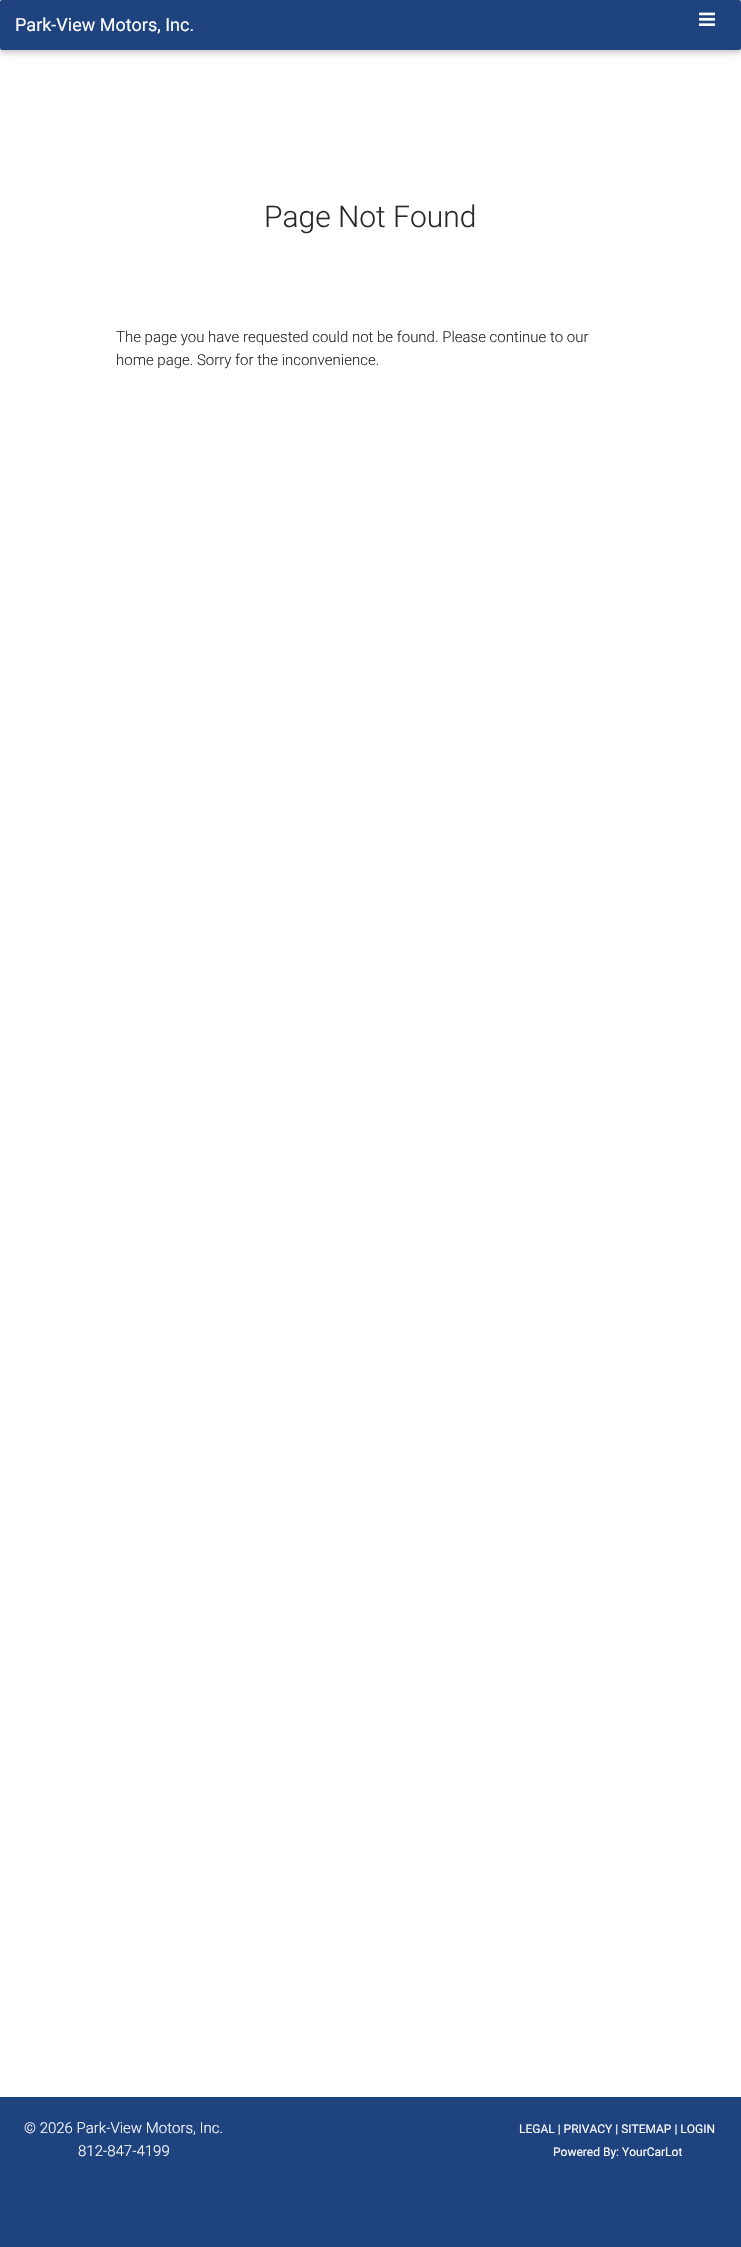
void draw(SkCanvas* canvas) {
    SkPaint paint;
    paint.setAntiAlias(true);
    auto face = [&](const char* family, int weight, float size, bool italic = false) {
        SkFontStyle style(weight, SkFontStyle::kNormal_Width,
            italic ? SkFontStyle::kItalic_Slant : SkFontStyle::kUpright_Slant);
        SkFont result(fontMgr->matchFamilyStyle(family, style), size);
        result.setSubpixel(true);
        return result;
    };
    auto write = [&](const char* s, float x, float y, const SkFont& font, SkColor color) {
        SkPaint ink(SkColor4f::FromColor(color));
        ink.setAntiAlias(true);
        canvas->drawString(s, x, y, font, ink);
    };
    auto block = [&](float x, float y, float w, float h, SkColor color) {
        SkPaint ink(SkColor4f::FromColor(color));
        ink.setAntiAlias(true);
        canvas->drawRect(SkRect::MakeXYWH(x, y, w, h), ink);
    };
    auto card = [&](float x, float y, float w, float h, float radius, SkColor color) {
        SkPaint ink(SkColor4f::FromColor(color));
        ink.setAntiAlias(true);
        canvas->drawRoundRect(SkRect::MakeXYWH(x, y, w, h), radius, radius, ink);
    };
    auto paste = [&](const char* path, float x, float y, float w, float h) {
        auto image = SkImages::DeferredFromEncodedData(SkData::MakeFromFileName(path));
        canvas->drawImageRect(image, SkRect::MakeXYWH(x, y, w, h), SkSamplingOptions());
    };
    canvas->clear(SK_ColorWHITE);
    paint.setColor(SkColorSetARGB(31, 0, 0, 0));
    paint.setMaskFilter(SkMaskFilter::MakeBlur(kNormal_SkBlurStyle, 5));
    canvas->drawRoundRect(SkRect::MakeXYWH(0, 2, 741, 50), 2, 2, paint);
    paint.setMaskFilter(nullptr);
    paint.setColor(SkColorSetARGB(41, 0, 0, 0));
    paint.setMaskFilter(SkMaskFilter::MakeBlur(kNormal_SkBlurStyle, 2.5f));
    canvas->drawRoundRect(SkRect::MakeXYWH(0, 2, 741, 50), 2, 2, paint);
    paint.setMaskFilter(nullptr);
    card(0, 0, 741, 50, 2, SkColorSetRGB(30, 67, 127));
    auto kFont1 = face("Roboto", 400, 18);
    write("Park-View Motors, Inc.", 15, 31, kFont1, SK_ColorWHITE);
    paste("pic1.png", 699, 12, 17, 14);
    auto kFont2 = face("Roboto", 300, 30);
    write("Page Not Found", 264, 227, kFont2, SkColorSetRGB(40, 40, 40));
    auto kFont3 = face("Roboto", 300, 15);
    write("The page you have requested could not be found. Please continue to our", 116, 342, kFont3, SkColorSetRGB(40, 40, 40));
    write("home page. Sorry for the inconvenience.", 116, 365, kFont3, SkColorSetRGB(40, 40, 40));
    block(0, 2097, 741, 150, SkColorSetRGB(30, 67, 127));
    write("© 2026 Park-View Motors, Inc.", 24, 2133, kFont3, SK_ColorWHITE);
    write("812-847-4199", 78, 2156, kFont3, SK_ColorWHITE);
    auto kFont4 = face("Roboto", 400, 12);
    write("LEGAL | PRIVACY | SITEMAP | LOGIN", 519, 2133, kFont4, SK_ColorWHITE);
    write("Powered By: YourCarLot", 553, 2156, kFont4, SK_ColorWHITE);
}
